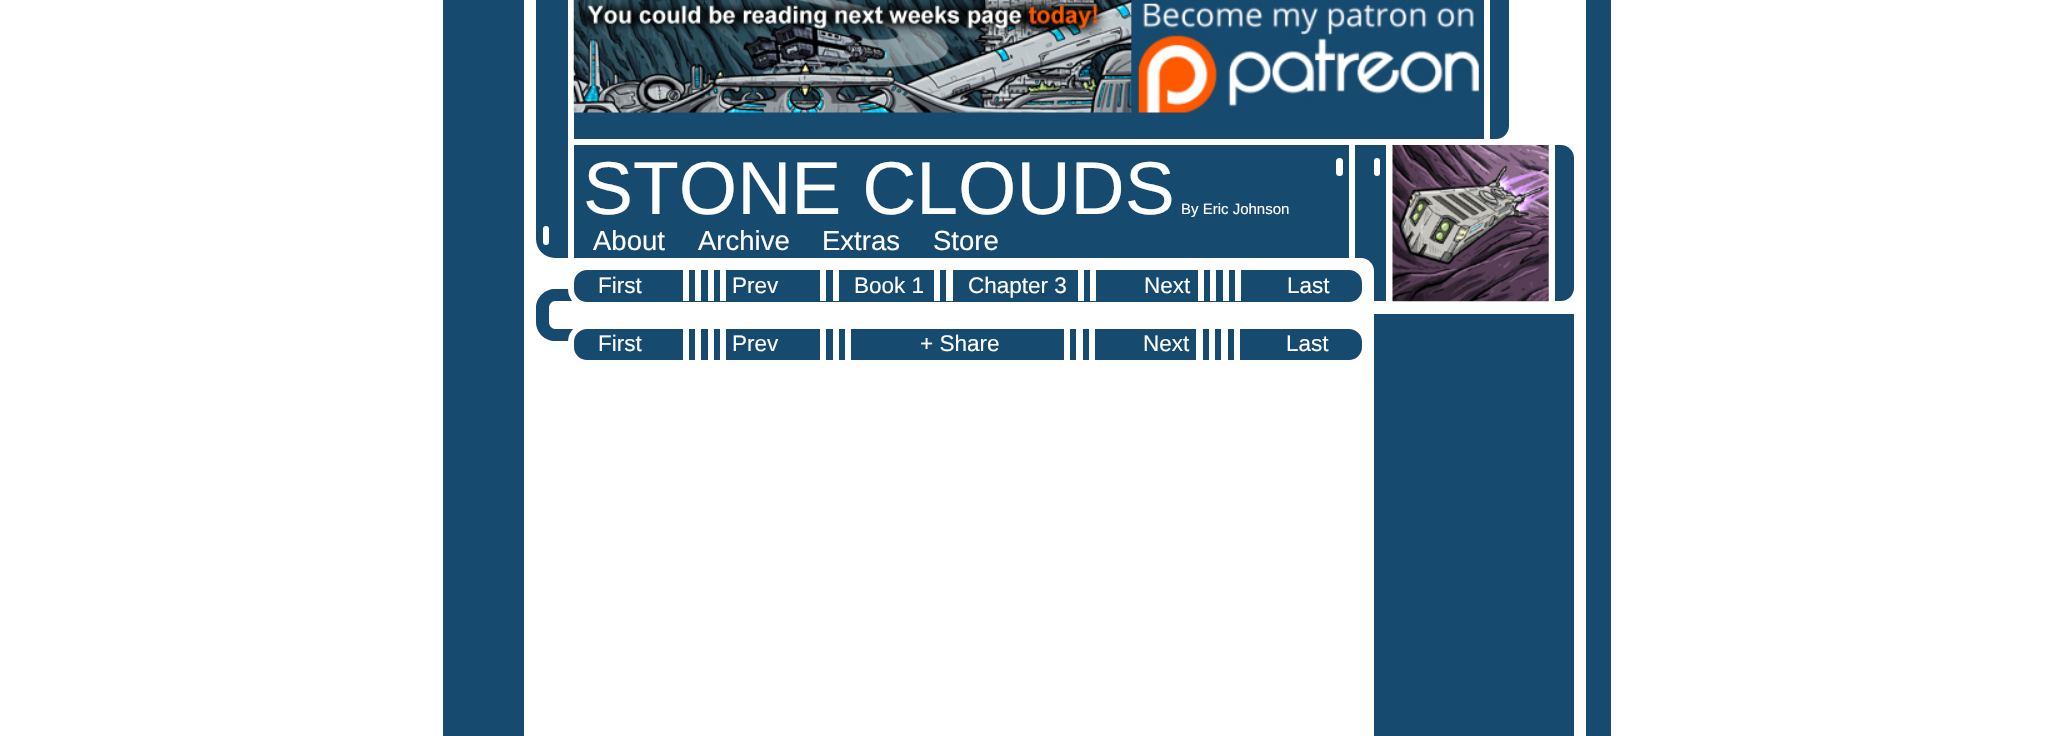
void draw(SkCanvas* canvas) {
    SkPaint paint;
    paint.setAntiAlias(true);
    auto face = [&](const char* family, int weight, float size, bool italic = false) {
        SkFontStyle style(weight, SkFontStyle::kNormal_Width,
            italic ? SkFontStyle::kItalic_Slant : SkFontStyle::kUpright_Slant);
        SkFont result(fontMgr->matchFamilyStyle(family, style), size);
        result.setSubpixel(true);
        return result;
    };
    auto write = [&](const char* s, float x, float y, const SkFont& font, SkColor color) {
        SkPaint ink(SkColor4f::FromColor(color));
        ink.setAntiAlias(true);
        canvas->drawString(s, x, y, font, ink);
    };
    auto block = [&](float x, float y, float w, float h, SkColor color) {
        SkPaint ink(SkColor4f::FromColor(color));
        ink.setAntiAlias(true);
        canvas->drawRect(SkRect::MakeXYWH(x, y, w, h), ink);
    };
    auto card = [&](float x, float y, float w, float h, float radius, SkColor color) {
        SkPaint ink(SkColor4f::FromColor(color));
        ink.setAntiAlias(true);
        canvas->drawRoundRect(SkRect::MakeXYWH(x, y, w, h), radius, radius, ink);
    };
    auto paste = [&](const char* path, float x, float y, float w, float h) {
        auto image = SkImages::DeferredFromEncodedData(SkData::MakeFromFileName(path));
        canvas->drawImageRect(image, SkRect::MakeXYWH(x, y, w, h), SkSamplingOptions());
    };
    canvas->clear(SK_ColorWHITE);
    block(1586, 0, 25, 736, SkColorSetRGB(22, 74, 111));
    block(443, 0, 81, 736, SkColorSetRGB(22, 74, 111));
    paint.setColor(SkColorSetRGB(22, 74, 111));
    canvas->drawPath(SkPathBuilder().moveTo(536, 0).lineTo(568, 0).lineTo(568, 258).lineTo(555, 258).cubicTo(544.5f, 258, 536, 249.5f, 536, 239).close().detach(), paint);
    card(543, 226, 6, 19, 3, SK_ColorWHITE);
    block(574, 0, 910, 139, SkColorSetRGB(22, 74, 111));
    paste("pic1.png", 573, 0, 906, 113);
    canvas->drawPath(SkPathBuilder().moveTo(1490, 0).lineTo(1509, 0).lineTo(1509, 126).cubicTo(1509, 133, 1503, 139, 1496, 139).lineTo(1490, 139).close().detach(), paint);
    block(574, 145, 775, 113, SkColorSetRGB(22, 74, 111));
    auto kFont1 = face("Liberation Sans", 400, 75);
    write("STONE CLOUDS", 583, 214, kFont1, SK_ColorWHITE);
    auto kFont2 = face("Liberation Sans", 400, 15);
    write("By Eric Johnson", 1181, 214, kFont2, SK_ColorWHITE);
    card(1336, 158, 7, 18, 3.5f, SK_ColorWHITE);
    auto kFont3 = face("Liberation Sans", 400, 27.5f);
    write("About", 593, 250, kFont3, SK_ColorWHITE);
    write("Archive", 698, 250, kFont3, SK_ColorWHITE);
    write("Extras", 822, 250, kFont3, SK_ColorWHITE);
    write("Store", 933, 250, kFont3, SK_ColorWHITE);
    block(1355, 145, 31, 156, SkColorSetRGB(22, 74, 111));
    card(1374, 158, 6, 18, 3, SK_ColorWHITE);
    paint.setColor(SK_ColorWHITE);
    canvas->drawPath(SkPathBuilder().moveTo(1336, 258).lineTo(1361, 258).cubicTo(1368, 258, 1374, 264, 1374, 271).lineTo(1374, 301).lineTo(1336, 301).close().detach(), paint);
    paste("pic2.png", 1392, 145, 157, 157);
    paint.setColor(SkColorSetRGB(22, 74, 111));
    canvas->drawPath(SkPathBuilder().moveTo(1555, 145).lineTo(1561, 145).cubicTo(1568, 145, 1574, 151, 1574, 158).lineTo(1574, 288).cubicTo(1574, 295, 1568, 301, 1561, 301).lineTo(1555, 301).close().detach(), paint);
    canvas->drawPath(SkPathBuilder(SkPathFillType::kEvenOdd).moveTo(555, 289).lineTo(1305, 289).cubicTo(1315, 289, 1324, 297, 1324, 308).lineTo(1324, 322).cubicTo(1324, 333, 1315, 341, 1305, 341).lineTo(555, 341).cubicTo(545, 341, 536, 333, 536, 322).lineTo(536, 308).cubicTo(536, 297, 545, 289, 555, 289).close().moveTo(555, 301).lineTo(1305, 301).cubicTo(1315, 301, 1324, 304, 1324, 308).lineTo(1324, 322).cubicTo(1324, 326, 1315, 329, 1305, 329).lineTo(555, 329).cubicTo(552, 329, 549, 326, 549, 322).lineTo(549, 308).cubicTo(549, 304, 552, 301, 555, 301).close().detach(), paint);
    canvas->drawRoundRect(SkRect::MakeXYWH(571, 267, 794, 38), 16, 16, paint);
    paint.setStyle(SkPaint::kStroke_Style);
    paint.setStrokeWidth(6);
    paint.setColor(SK_ColorWHITE);
    canvas->drawRoundRect(SkRect::MakeXYWH(571, 267, 794, 38), 16, 16, paint);
    auto kFont4 = face("Liberation Sans", 400, 22.5f);
    write("First", 598, 293, kFont4, SK_ColorWHITE);
    block(683, 270, 6, 31, SK_ColorWHITE);
    block(695, 270, 6, 31, SK_ColorWHITE);
    block(708, 270, 6, 31, SK_ColorWHITE);
    block(720, 270, 6, 31, SK_ColorWHITE);
    write("Prev", 732, 293, kFont4, SK_ColorWHITE);
    block(820, 270, 6, 31, SK_ColorWHITE);
    block(833, 270, 6, 31, SK_ColorWHITE);
    write("Book 1", 854, 293, kFont4, SK_ColorWHITE);
    block(934, 270, 6, 31, SK_ColorWHITE);
    block(946, 270, 7, 31, SK_ColorWHITE);
    write("Chapter 3", 968, 293, kFont4, SK_ColorWHITE);
    block(1078, 270, 6, 31, SK_ColorWHITE);
    block(1090, 270, 6, 31, SK_ColorWHITE);
    write("Next", 1144, 293, kFont4, SK_ColorWHITE);
    block(1198, 270, 6, 31, SK_ColorWHITE);
    block(1210, 270, 6, 31, SK_ColorWHITE);
    block(1223, 270, 6, 31, SK_ColorWHITE);
    block(1235, 270, 6, 31, SK_ColorWHITE);
    write("Last", 1287, 293, kFont4, SK_ColorWHITE);
    paint.setStyle(SkPaint::kFill_Style);
    paint.setColor(SkColorSetRGB(22, 74, 111));
    canvas->drawRoundRect(SkRect::MakeXYWH(571, 326, 794, 37), 16, 16, paint);
    paint.setStyle(SkPaint::kStroke_Style);
    paint.setColor(SK_ColorWHITE);
    canvas->drawRoundRect(SkRect::MakeXYWH(571, 326, 794, 37), 16, 16, paint);
    write("First", 598, 351, kFont4, SK_ColorWHITE);
    block(683, 329, 6, 31, SK_ColorWHITE);
    block(695, 329, 6, 31, SK_ColorWHITE);
    block(708, 329, 6, 31, SK_ColorWHITE);
    block(720, 329, 6, 31, SK_ColorWHITE);
    write("Prev", 732, 351, kFont4, SK_ColorWHITE);
    block(820, 329, 6, 31, SK_ColorWHITE);
    block(833, 329, 6, 31, SK_ColorWHITE);
    block(845, 329, 6, 31, SK_ColorWHITE);
    write("+ Share", 920, 351, kFont4, SK_ColorWHITE);
    block(1064, 329, 6, 31, SK_ColorWHITE);
    block(1076, 329, 7, 31, SK_ColorWHITE);
    block(1089, 329, 6, 31, SK_ColorWHITE);
    write("Next", 1143, 351, kFont4, SK_ColorWHITE);
    block(1196, 329, 7, 31, SK_ColorWHITE);
    block(1209, 329, 6, 31, SK_ColorWHITE);
    block(1221, 329, 7, 31, SK_ColorWHITE);
    block(1234, 329, 6, 31, SK_ColorWHITE);
    write("Last", 1286, 351, kFont4, SK_ColorWHITE);
    block(1374, 314, 200, 422, SkColorSetRGB(22, 74, 111));
}
